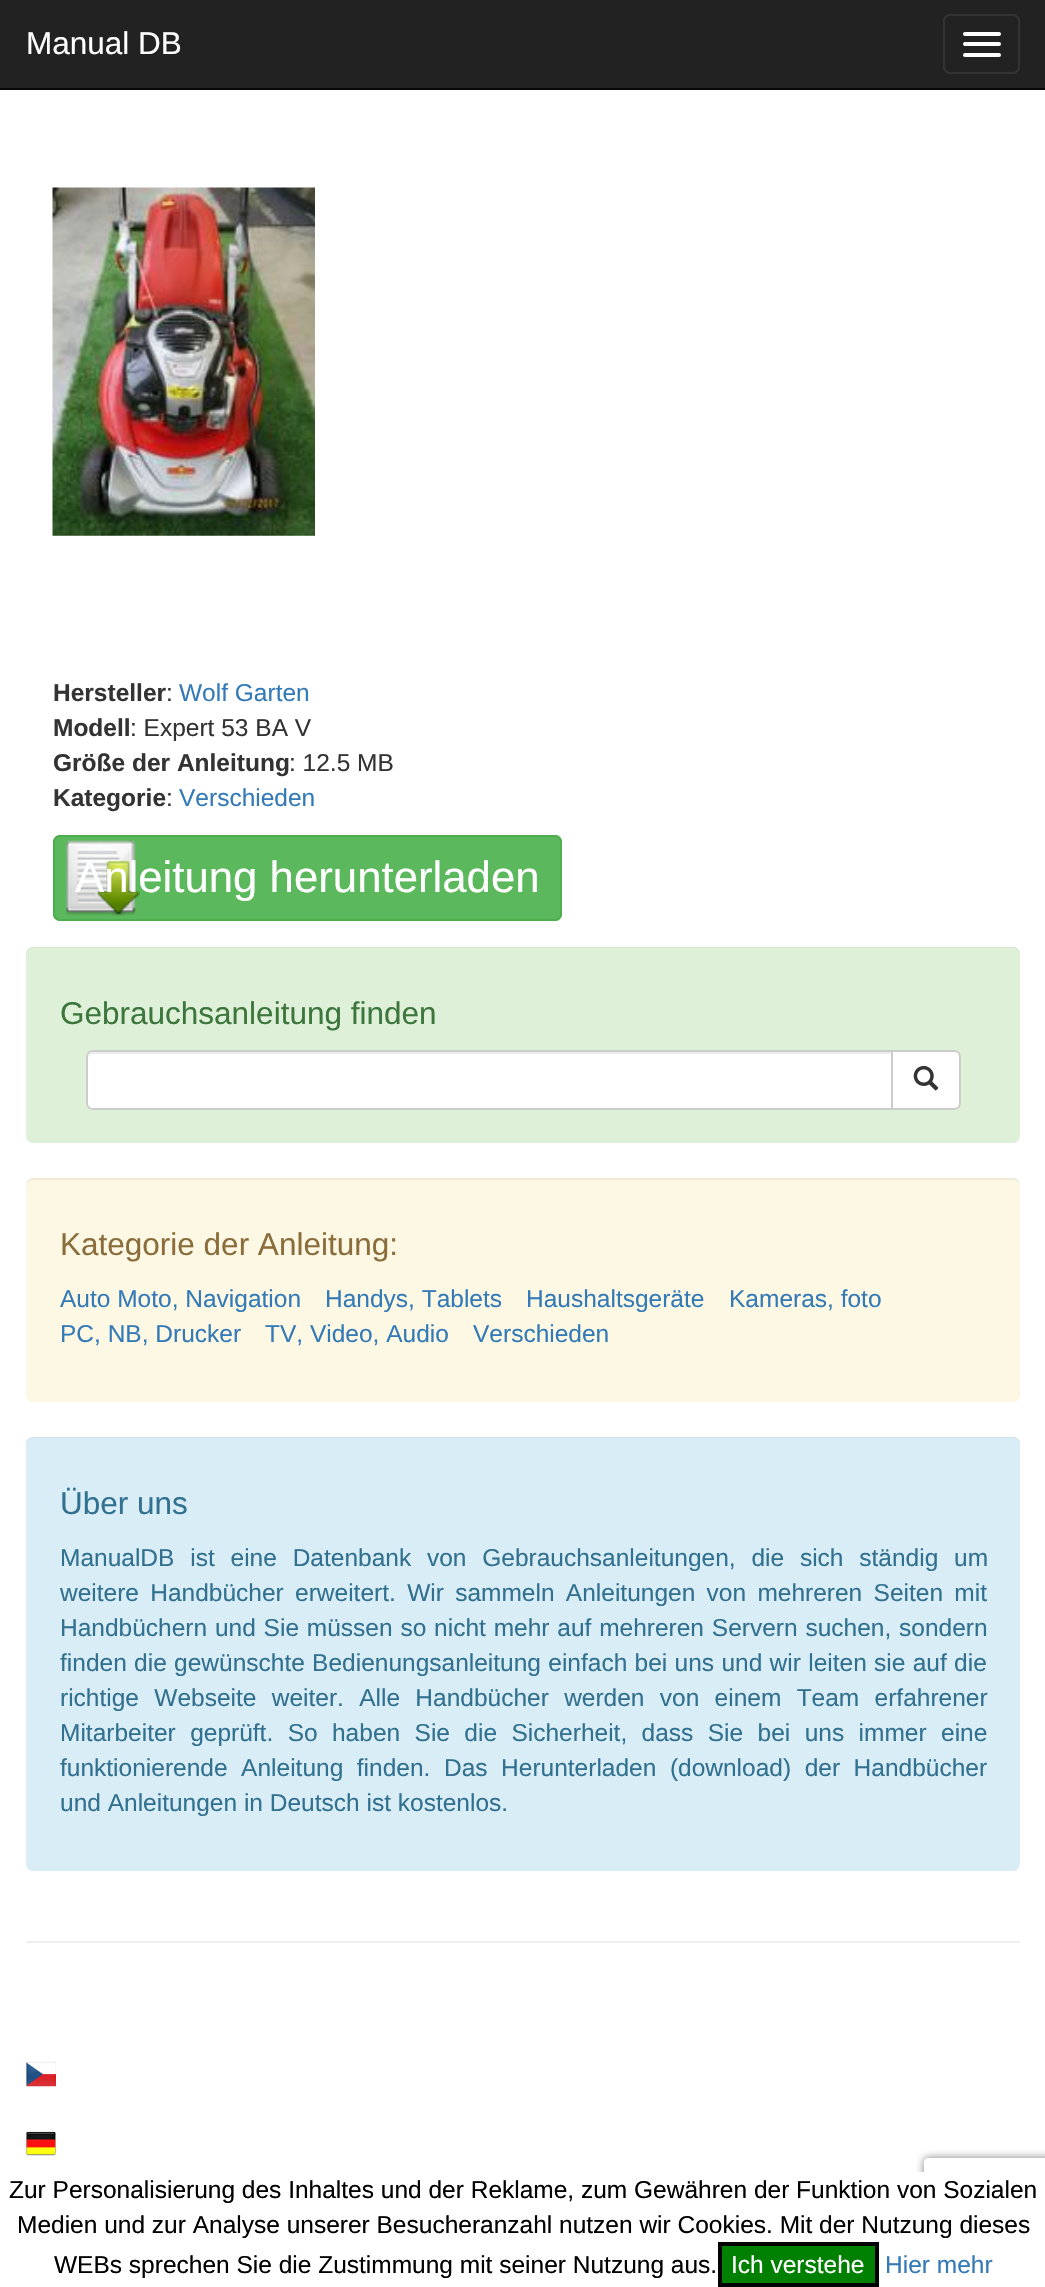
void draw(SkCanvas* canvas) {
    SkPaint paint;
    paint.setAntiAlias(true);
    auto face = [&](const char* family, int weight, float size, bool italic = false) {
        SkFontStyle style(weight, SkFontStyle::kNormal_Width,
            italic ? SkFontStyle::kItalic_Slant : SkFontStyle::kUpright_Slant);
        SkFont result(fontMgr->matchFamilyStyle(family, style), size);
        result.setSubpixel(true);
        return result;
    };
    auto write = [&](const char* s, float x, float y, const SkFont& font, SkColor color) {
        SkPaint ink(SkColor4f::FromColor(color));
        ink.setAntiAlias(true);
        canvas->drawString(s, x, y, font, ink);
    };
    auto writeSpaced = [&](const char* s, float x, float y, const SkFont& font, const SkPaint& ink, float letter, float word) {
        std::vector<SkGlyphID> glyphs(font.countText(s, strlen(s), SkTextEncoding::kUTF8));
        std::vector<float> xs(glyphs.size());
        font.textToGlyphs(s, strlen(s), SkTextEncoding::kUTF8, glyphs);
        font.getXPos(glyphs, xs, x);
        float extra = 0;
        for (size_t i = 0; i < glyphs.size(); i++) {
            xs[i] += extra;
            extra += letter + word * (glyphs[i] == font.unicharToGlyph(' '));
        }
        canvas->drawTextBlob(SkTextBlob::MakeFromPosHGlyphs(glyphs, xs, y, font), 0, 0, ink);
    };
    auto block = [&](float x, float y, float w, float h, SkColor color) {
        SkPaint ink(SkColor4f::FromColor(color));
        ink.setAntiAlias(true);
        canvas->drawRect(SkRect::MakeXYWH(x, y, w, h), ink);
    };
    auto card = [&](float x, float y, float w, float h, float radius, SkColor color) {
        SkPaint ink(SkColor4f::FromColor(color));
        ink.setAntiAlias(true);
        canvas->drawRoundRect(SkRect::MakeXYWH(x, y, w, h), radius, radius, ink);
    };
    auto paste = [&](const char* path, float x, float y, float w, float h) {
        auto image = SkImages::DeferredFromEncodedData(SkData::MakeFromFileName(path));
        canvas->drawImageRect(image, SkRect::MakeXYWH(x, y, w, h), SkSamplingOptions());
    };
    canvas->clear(SK_ColorWHITE);
    block(0, 0, 1045, 88, SkColorSetRGB(34, 34, 34));
    block(0, 88, 1045, 2, SkColorSetRGB(8, 8, 8));
    auto kFont1 = face("Liberation Sans", 400, 31.5f);
    write("Manual DB", 26, 54, kFont1, SK_ColorWHITE);
    paint.setStyle(SkPaint::kStroke_Style);
    paint.setStrokeWidth(2);
    paint.setColor(SkColorSetRGB(51, 51, 51));
    canvas->drawRoundRect(SkRect::MakeXYWH(944, 15, 75, 58), 6, 6, paint);
    card(963, 32, 38, 4, 2, SK_ColorWHITE);
    card(963, 42, 38, 4, 2, SK_ColorWHITE);
    card(963, 53, 38, 4, 2, SK_ColorWHITE);
    paste("pic1.png", 52, 187, 263, 349);
    auto kFont2 = face("Liberation Sans", 700, 24.5f);
    write("Hersteller", 53, 701, kFont2, SkColorSetRGB(51, 51, 51));
    auto kFont3 = face("Liberation Sans", 400, 24.5f);
    write(":", 166, 701, kFont3, SkColorSetRGB(51, 51, 51));
    write("Wolf Garten", 179, 701, kFont3, SkColorSetRGB(51, 122, 183));
    write("Modell", 53, 736, kFont2, SkColorSetRGB(51, 51, 51));
    write(": Expert 53 BA V", 130, 736, kFont3, SkColorSetRGB(51, 51, 51));
    write("Größe der Anleitung", 53, 771, kFont2, SkColorSetRGB(51, 51, 51));
    write(": 12.5 MB", 289, 771, kFont3, SkColorSetRGB(51, 51, 51));
    write("Kategorie", 53, 806, kFont2, SkColorSetRGB(51, 51, 51));
    write(":", 166, 806, kFont3, SkColorSetRGB(51, 51, 51));
    write("Verschieden", 179, 806, kFont3, SkColorSetRGB(51, 122, 183));
    card(53, 835, 509, 86, 7, SkColorSetRGB(92, 184, 92));
    paste("pic2.png", 66, 840, 74, 76);
    paint.setColor(SkColorSetRGB(76, 174, 76));
    canvas->drawRoundRect(SkRect::MakeXYWH(54, 836, 507, 84), 6, 6, paint);
    auto kFont4 = face("Liberation Sans", 400, 43.75f);
    write("Anleitung herunterladen", 75, 892, kFont4, SK_ColorWHITE);
    canvas->save();
    canvas->clipPath(SkPathBuilder(SkPathFillType::kEvenOdd).moveTo(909, 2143).lineTo(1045, 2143).lineTo(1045, 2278).lineTo(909, 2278).close().moveTo(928, 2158).lineTo(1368, 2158).cubicTo(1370, 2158, 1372, 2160, 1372, 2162).lineTo(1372, 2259).cubicTo(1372, 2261, 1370, 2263, 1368, 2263).lineTo(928, 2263).cubicTo(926, 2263, 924, 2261, 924, 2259).lineTo(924, 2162).cubicTo(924, 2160, 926, 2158, 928, 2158).close().detach(), true);
    paint.setStyle(SkPaint::kFill_Style);
    paint.setColor(SkColorSetRGB(128, 128, 128));
    paint.setMaskFilter(SkMaskFilter::MakeBlur(kNormal_SkBlurStyle, 4.5f));
    canvas->drawRoundRect(SkRect::MakeXYWH(924, 2158, 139, 105), 4, 4, paint);
    paint.setMaskFilter(nullptr);
    canvas->restore();
    card(26, 947, 994, 196, 7, SkColorSetRGB(223, 240, 216));
    paint.setColor(SkColorSetARGB(13, 0, 0, 0));
    canvas->drawPath(SkPathBuilder().moveTo(33, 948).lineTo(1013, 948).cubicTo(1017, 948, 1020, 952, 1020, 956).lineTo(1020, 954).cubicTo(1020, 950, 1017, 947, 1013, 947).lineTo(33, 947).cubicTo(29, 947, 26, 950, 26, 954).lineTo(26, 956).cubicTo(26, 952, 29, 948, 33, 948).close().detach(), paint);
    write("Gebrauchsanleitung finden", 60, 1024, kFont1, SkColorSetRGB(60, 118, 61));
    paint.setColor(SK_ColorWHITE);
    canvas->drawPath(SkPathBuilder().moveTo(93, 1050).lineTo(893, 1050).lineTo(893, 1110).lineTo(93, 1110).cubicTo(89, 1110, 86, 1107, 86, 1103).lineTo(86, 1057).cubicTo(86, 1053, 89, 1050, 93, 1050).close().detach(), paint);
    paint.setColor(SkColorSetRGB(236, 236, 236));
    canvas->drawPath(SkPathBuilder().moveTo(93, 1054).lineTo(891, 1054).lineTo(891, 1052).lineTo(93, 1052).cubicTo(89, 1052, 88, 1056, 88, 1059).cubicTo(88, 1056, 90, 1054, 93, 1054).close().detach(), paint);
    paint.setStyle(SkPaint::kStroke_Style);
    paint.setColor(SkColorSetRGB(204, 204, 204));
    canvas->drawPath(SkPathBuilder().moveTo(93, 1051).lineTo(892, 1051).lineTo(892, 1109).lineTo(93, 1109).cubicTo(89.5f, 1109, 87, 1106.5f, 87, 1103).lineTo(87, 1057).cubicTo(87, 1053.5f, 89.5f, 1051, 93, 1051).close().detach(), paint);
    paint.setStyle(SkPaint::kFill_Style);
    paint.setColor(SK_ColorWHITE);
    canvas->drawPath(SkPathBuilder().moveTo(892, 1051).lineTo(954, 1051).cubicTo(957.5f, 1051, 960, 1053.5f, 960, 1057).lineTo(960, 1103).cubicTo(960, 1106.5f, 957.5f, 1109, 954, 1109).lineTo(892, 1109).close().detach(), paint);
    paint.setStyle(SkPaint::kStroke_Style);
    paint.setColor(SkColorSetRGB(204, 204, 204));
    canvas->drawPath(SkPathBuilder().moveTo(892, 1051).lineTo(954, 1051).cubicTo(957.5f, 1051, 960, 1053.5f, 960, 1057).lineTo(960, 1103).cubicTo(960, 1106.5f, 957.5f, 1109, 954, 1109).lineTo(892, 1109).close().detach(), paint);
    paste("pic3.png", 913, 1065, 26, 26);
    card(26, 1178, 994, 224, 7, SkColorSetRGB(252, 248, 227));
    paint.setStyle(SkPaint::kFill_Style);
    paint.setColor(SkColorSetARGB(13, 0, 0, 0));
    canvas->drawPath(SkPathBuilder().moveTo(33, 1180).lineTo(1013, 1180).cubicTo(1017, 1180, 1020, 1183, 1020, 1186).lineTo(1020, 1185).cubicTo(1020, 1181, 1017, 1178, 1013, 1178).lineTo(33, 1178).cubicTo(29, 1178, 26, 1181, 26, 1185).lineTo(26, 1186).cubicTo(26, 1183, 29, 1180, 33, 1180).close().detach(), paint);
    write("Kategorie der Anleitung:", 60, 1255, kFont1, SkColorSetRGB(138, 109, 59));
    write("Auto Moto, Navigation", 60, 1307, kFont3, SkColorSetRGB(51, 122, 183));
    write("Handys, Tablets", 325, 1307, kFont3, SkColorSetRGB(51, 122, 183));
    write("Haushaltsgeräte", 526, 1307, kFont3, SkColorSetRGB(51, 122, 183));
    write("Kameras, foto", 729, 1307, kFont3, SkColorSetRGB(51, 122, 183));
    write("PC, NB, Drucker", 60, 1342, kFont3, SkColorSetRGB(51, 122, 183));
    write("TV, Video, Audio", 265, 1342, kFont3, SkColorSetRGB(51, 122, 183));
    write("Verschieden", 473, 1342, kFont3, SkColorSetRGB(51, 122, 183));
    card(26, 1437, 994, 434, 7, SkColorSetRGB(217, 237, 247));
    canvas->drawPath(SkPathBuilder().moveTo(33, 1438).lineTo(1013, 1438).cubicTo(1017, 1438, 1020, 1442, 1020, 1446).lineTo(1020, 1444).cubicTo(1020, 1440, 1017, 1437, 1013, 1437).lineTo(33, 1437).cubicTo(29, 1437, 26, 1440, 26, 1444).lineTo(26, 1446).cubicTo(26, 1442, 29, 1438, 33, 1438).close().detach(), paint);
    write("Über uns", 60, 1514, kFont1, SkColorSetRGB(49, 112, 143));
    paint.setColor(SkColorSetRGB(49, 112, 143));
    writeSpaced("ManualDB ist eine Datenbank von Gebrauchsanleitungen, die sich ständig um", 60, 1566, kFont3, paint, 0, 9);
    writeSpaced("weitere Handbücher erweitert. Wir sammeln Anleitungen von mehreren Seiten mit", 60, 1601, kFont3, paint, 0, 4.5f);
    writeSpaced("Handbüchern und Sie müssen so nicht mehr auf mehreren Servern suchen, sondern", 60, 1636, kFont3, paint, 0, 1);
    writeSpaced("finden die gewünschte Bedienungsanleitung einfach bei uns und wir leiten sie auf die", 60, 1671, kFont3, paint, 0, 0.5f);
    writeSpaced("richtige Webseite weiter. Alle Handbücher werden von einem Team erfahrener", 60, 1706, kFont3, paint, 0, 8.5f);
    writeSpaced("Mitarbeiter geprüft. So haben Sie die Sicherheit, dass Sie bei uns immer eine", 60, 1741, kFont3, paint, 0, 7.6f);
    writeSpaced("funktionierende Anleitung finden. Das Herunterladen (download) der Handbücher", 60, 1776, kFont3, paint, 0, 6.75f);
    write("und Anleitungen in Deutsch ist kostenlos.", 60, 1811, kFont3, SkColorSetRGB(49, 112, 143));
    block(26, 1941, 994, 2, SkColorSetRGB(238, 238, 238));
    paste("pic4.png", 26, 2061, 30, 26);
    paste("pic5.png", 26, 2131, 30, 25);
    block(915, 2172, 130, 100, SK_ColorWHITE);
    write("Zur Personalisierung des Inhaltes und der Reklame, zum Gewähren der Funktion von Sozialen", 9, 2198, kFont3, SK_ColorBLACK);
    write("Medien und zur Analyse unserer Besucheranzahl nutzen wir Cookies. Mit der Nutzung dieses", 17, 2233, kFont3, SK_ColorBLACK);
    write("WEBs sprechen Sie die Zustimmung mit seiner Nutzung aus.", 54, 2273, kFont3, SK_ColorBLACK);
    paint.setColor(SkColorSetRGB(0, 128, 0));
    canvas->drawRect(SkRect::MakeXYWH(720, 2244, 157, 41), paint);
    paint.setStyle(SkPaint::kStroke_Style);
    paint.setStrokeWidth(4);
    paint.setColor(SK_ColorBLACK);
    canvas->drawRect(SkRect::MakeXYWH(720, 2244, 157, 41), paint);
    write("Ich verstehe", 731, 2273, kFont3, SK_ColorWHITE);
    write("Hier mehr", 885, 2273, kFont3, SkColorSetRGB(51, 122, 183));
}
